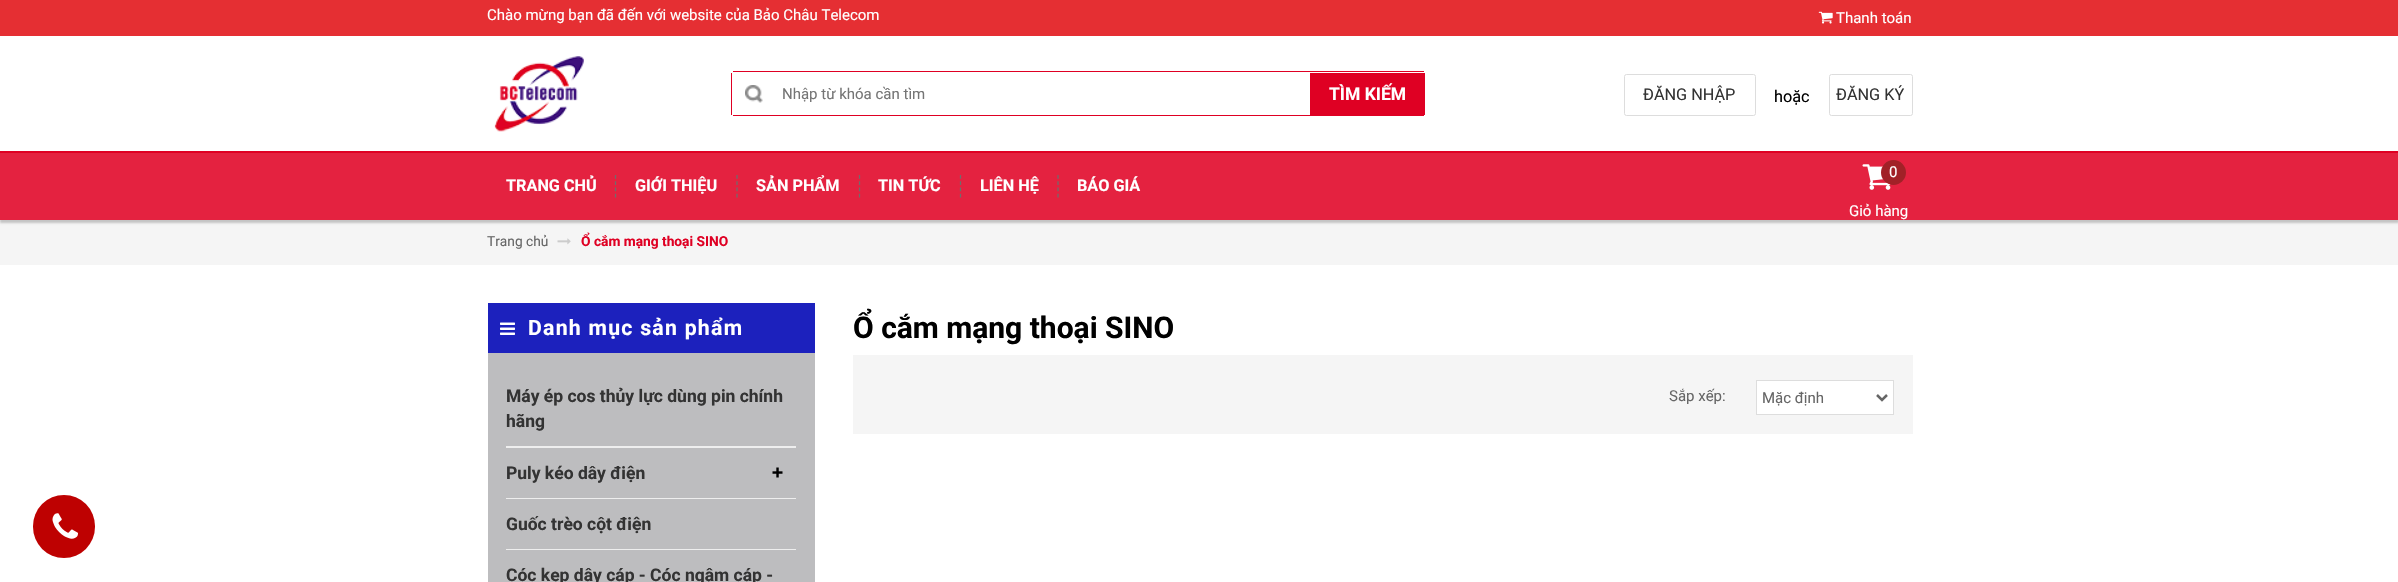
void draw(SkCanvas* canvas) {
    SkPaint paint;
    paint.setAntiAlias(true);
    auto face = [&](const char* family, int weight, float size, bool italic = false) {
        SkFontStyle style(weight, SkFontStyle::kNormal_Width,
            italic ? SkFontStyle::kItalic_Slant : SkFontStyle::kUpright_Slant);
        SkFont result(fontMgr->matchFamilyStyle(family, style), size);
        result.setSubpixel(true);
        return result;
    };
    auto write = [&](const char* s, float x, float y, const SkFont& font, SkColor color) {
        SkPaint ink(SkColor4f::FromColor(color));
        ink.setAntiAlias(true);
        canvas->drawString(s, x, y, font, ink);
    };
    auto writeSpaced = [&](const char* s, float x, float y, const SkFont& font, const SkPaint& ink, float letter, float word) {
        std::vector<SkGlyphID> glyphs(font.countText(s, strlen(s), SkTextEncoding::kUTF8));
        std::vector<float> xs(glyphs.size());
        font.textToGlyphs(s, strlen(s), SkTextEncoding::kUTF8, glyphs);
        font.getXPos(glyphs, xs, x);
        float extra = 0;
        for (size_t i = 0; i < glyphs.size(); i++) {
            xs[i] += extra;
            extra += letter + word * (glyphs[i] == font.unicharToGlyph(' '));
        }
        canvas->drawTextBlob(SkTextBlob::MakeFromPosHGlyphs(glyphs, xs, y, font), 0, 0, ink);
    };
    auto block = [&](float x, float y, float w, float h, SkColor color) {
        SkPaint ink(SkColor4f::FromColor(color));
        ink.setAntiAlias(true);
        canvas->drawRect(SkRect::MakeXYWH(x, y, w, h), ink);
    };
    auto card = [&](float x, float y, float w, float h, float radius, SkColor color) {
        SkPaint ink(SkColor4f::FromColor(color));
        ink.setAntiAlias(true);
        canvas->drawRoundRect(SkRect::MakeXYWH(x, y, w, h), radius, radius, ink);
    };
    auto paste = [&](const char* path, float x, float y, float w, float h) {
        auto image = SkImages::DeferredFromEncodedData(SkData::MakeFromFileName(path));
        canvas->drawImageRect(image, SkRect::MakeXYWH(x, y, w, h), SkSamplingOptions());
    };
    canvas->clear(SK_ColorWHITE);
    card(33, 495, 62, 63, 31, SkColorSetRGB(190, 1, 1));
    paste("pic1.png", 52, 513, 26, 26);
    block(0, 0, 2398, 36, SkColorSetRGB(229, 47, 51));
    auto kFont1 = face("Roboto", 400, 15);
    write("Chào mừng bạn đã đến với website của Bảo Châu Telecom", 487, 20, kFont1, SK_ColorWHITE);
    paste("pic2.png", 1818, 11, 15, 13);
    write("Thanh toán", 1836, 23, kFont1, SK_ColorWHITE);
    paste("pic3.png", 494, 56, 90, 76);
    paste("pic4.png", 745, 85, 18, 18);
    block(733, 71, 691, 1, SkColorSetRGB(223, 0, 35));
    block(733, 115, 691, 1, SkColorSetRGB(223, 0, 35));
    block(731, 73, 1, 42, SkColorSetRGB(223, 0, 35));
    write("Nhập từ khóa cần tìm", 782, 99, kFont1, SkColorSetRGB(117, 117, 117));
    block(1310, 73, 115, 42, SkColorSetRGB(223, 0, 35));
    auto kFont2 = face("Roboto", 700, 17.5f);
    write("TÌM KIẾM", 1329, 100, kFont2, SK_ColorWHITE);
    paint.setStyle(SkPaint::kStroke_Style);
    paint.setStrokeWidth(1);
    paint.setColor(SkColorSetRGB(221, 221, 221));
    canvas->drawRoundRect(SkRect::MakeXYWH(1624.5f, 74.5f, 131, 41), 2, 2, paint);
    auto kFont3 = face("Roboto", 400, 16.25f);
    write("ĐĂNG NHẬP", 1643, 100, kFont3, SkColorSetRGB(51, 51, 51));
    write("hoặc", 1774, 102, kFont3, SK_ColorBLACK);
    canvas->drawRoundRect(SkRect::MakeXYWH(1829.5f, 74.5f, 83, 41), 2, 2, paint);
    write("ĐĂNG KÝ", 1836, 100, kFont3, SkColorSetRGB(51, 51, 51));
    block(0, 220, 2398, 45, SkColorSetRGB(245, 245, 245));
    paint.setStyle(SkPaint::kFill_Style);
    paint.setColor(SkColorSetARGB(51, 0, 0, 0));
    paint.setMaskFilter(SkMaskFilter::MakeBlur(kNormal_SkBlurStyle, 1));
    canvas->drawRect(SkRect::MakeXYWH(0, 154, 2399, 69), paint);
    paint.setMaskFilter(nullptr);
    block(0, 151, 2398, 2, SkColorSetRGB(223, 0, 35));
    block(0, 153, 2398, 67, SkColorSetRGB(228, 34, 64));
    paint.setStyle(SkPaint::kStroke_Style);
    paint.setStrokeWidth(1.2f);
    paint.setColor(SkColorSetRGB(109, 109, 109));
    paint.setPathEffect(SkDashPathEffect::Make({{3.75f, 2.5f}}, 0));
    canvas->drawPath(SkPathBuilder().moveTo(615.5f, 175).lineTo(615.5f, 197.5f).detach(), paint);
    paint.setPathEffect(nullptr);
    auto kFont4 = face("Roboto", 700, 16.25f);
    write("TRANG CHỦ", 506, 191, kFont4, SK_ColorWHITE);
    paint.setPathEffect(SkDashPathEffect::Make({{3.75f, 2.5f}}, 0));
    canvas->drawPath(SkPathBuilder().moveTo(737, 175).lineTo(737, 197.5f).detach(), paint);
    paint.setPathEffect(nullptr);
    write("GIỚI THIỆU", 635, 191, kFont4, SK_ColorWHITE);
    paint.setPathEffect(SkDashPathEffect::Make({{3.75f, 2.5f}}, 0));
    canvas->drawPath(SkPathBuilder().moveTo(859.5f, 175).lineTo(859.5f, 197.5f).detach(), paint);
    paint.setPathEffect(nullptr);
    write("SẢN PHẨM", 756, 191, kFont4, SK_ColorWHITE);
    paint.setPathEffect(SkDashPathEffect::Make({{3.75f, 2.5f}}, 0));
    canvas->drawPath(SkPathBuilder().moveTo(960.5f, 175).lineTo(960.5f, 197.5f).detach(), paint);
    paint.setPathEffect(nullptr);
    write("TIN TỨC", 878, 191, kFont4, SK_ColorWHITE);
    paint.setPathEffect(SkDashPathEffect::Make({{3.75f, 2.5f}}, 0));
    canvas->drawPath(SkPathBuilder().moveTo(1058, 175).lineTo(1058, 197.5f).detach(), paint);
    paint.setPathEffect(nullptr);
    write("LIÊN HỆ", 980, 191, kFont4, SK_ColorWHITE);
    write("BÁO GIÁ", 1077, 191, kFont4, SK_ColorWHITE);
    paste("pic5.png", 1862, 164, 29, 26);
    paint.setStyle(SkPaint::kFill_Style);
    paint.setColor(SkColorSetRGB(161, 33, 39));
    canvas->drawCircle(1893.5f, 172.5f, 12.5f, paint);
    write("0", 1889, 177, kFont1, SK_ColorWHITE);
    write("Giỏ hàng", 1849, 216, kFont1, SK_ColorWHITE);
    auto kFont5 = face("Roboto", 400, 13.75f);
    write("Trang chủ", 487, 246, kFont5, SkColorSetRGB(102, 102, 102));
    paste("pic6.png", 557, 238, 14, 7);
    auto kFont6 = face("Roboto", 700, 13.75f);
    write("Ổ cắm mạng thoại SINO", 581, 246, kFont6, SkColorSetRGB(223, 0, 35));
    block(488, 303, 327, 50, SkColorSetRGB(28, 33, 189));
    paste("pic7.png", 500, 322, 15, 13);
    auto kFont7 = face("Roboto", 700, 21.25f);
    paint.setColor(SK_ColorWHITE);
    writeSpaced("Danh mục sản phẩm", 528, 335, kFont7, paint, 1.25f, 0);
    block(488, 353, 327, 229, SkColorSetRGB(189, 189, 191));
    paint.setColor(SkColorSetRGB(238, 238, 238));
    canvas->drawPath(SkPathBuilder().moveTo(506, 373).lineTo(506, 448).lineTo(796, 448).lineTo(796, 446).lineTo(506, 446).close().detach(), paint);
    write("Máy ép cos thủy lực dùng pin chính", 506, 402, kFont2, SkColorSetRGB(51, 51, 51));
    write("hãng", 506, 427, kFont2, SkColorSetRGB(51, 51, 51));
    canvas->drawPath(SkPathBuilder().moveTo(506, 449).lineTo(506, 499).lineTo(796, 499).lineTo(796, 498).lineTo(506, 498).close().detach(), paint);
    write("Puly kéo dây điện", 506, 479, kFont2, SkColorSetRGB(51, 51, 51));
    paste("pic8.png", 772, 467, 11, 11);
    canvas->drawPath(SkPathBuilder().moveTo(506, 500).lineTo(506, 550).lineTo(796, 550).lineTo(796, 549).lineTo(506, 549).close().detach(), paint);
    write("Guốc trèo cột điện", 506, 530, kFont2, SkColorSetRGB(51, 51, 51));
    write("Cóc kẹp dây cáp - Cóc ngậm cáp -", 506, 581, kFont2, SkColorSetRGB(51, 51, 51));
    auto kFont8 = face("Roboto", 700, 30);
    write("Ổ cắm mạng thoại SINO", 853, 338, kFont8, SK_ColorBLACK);
    block(853, 355, 1060, 79, SkColorSetRGB(245, 245, 245));
    write("Sắp xếp:", 1669, 401, kFont1, SkColorSetRGB(102, 102, 102));
    paint.setColor(SK_ColorWHITE);
    canvas->drawRect(SkRect::MakeXYWH(1756.5f, 380.5f, 137, 34), paint);
    paint.setStyle(SkPaint::kStroke_Style);
    paint.setStrokeWidth(1);
    paint.setColor(SkColorSetRGB(221, 221, 221));
    canvas->drawRect(SkRect::MakeXYWH(1756.5f, 380.5f, 137, 34), paint);
    paint.setStrokeWidth(2.5f);
    paint.setColor(SkColorSetRGB(102, 102, 102));
    canvas->drawPath(SkPathBuilder().moveTo(1877, 395).lineTo(1882, 400).lineTo(1887, 395).detach(), paint);
    write("Mặc định", 1762, 403, kFont1, SkColorSetRGB(102, 102, 102));
}
